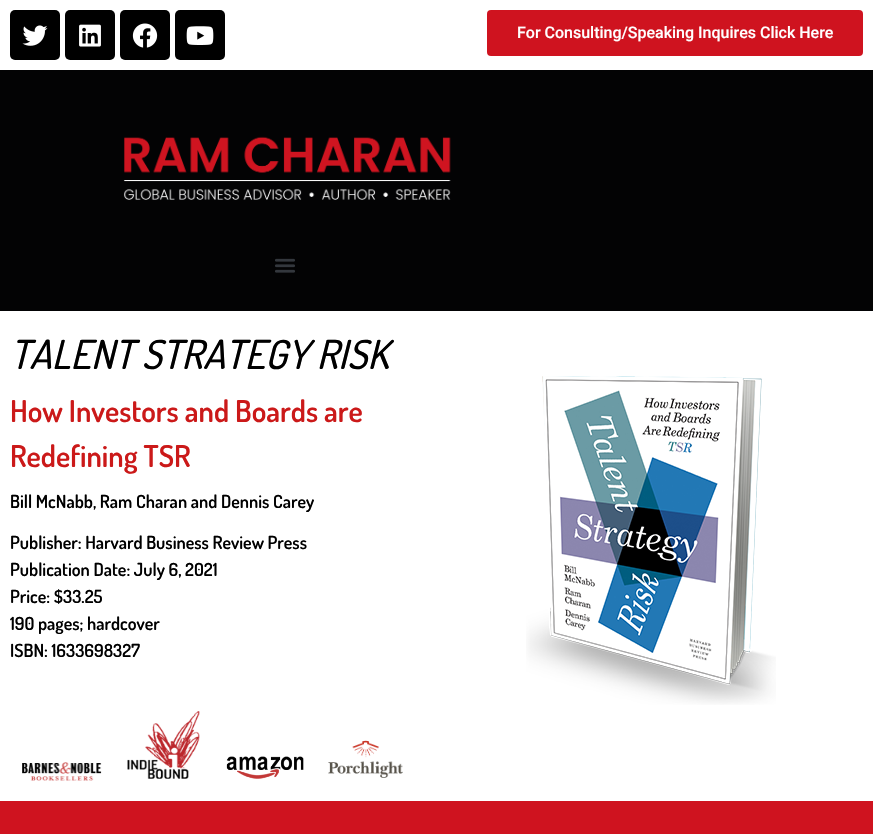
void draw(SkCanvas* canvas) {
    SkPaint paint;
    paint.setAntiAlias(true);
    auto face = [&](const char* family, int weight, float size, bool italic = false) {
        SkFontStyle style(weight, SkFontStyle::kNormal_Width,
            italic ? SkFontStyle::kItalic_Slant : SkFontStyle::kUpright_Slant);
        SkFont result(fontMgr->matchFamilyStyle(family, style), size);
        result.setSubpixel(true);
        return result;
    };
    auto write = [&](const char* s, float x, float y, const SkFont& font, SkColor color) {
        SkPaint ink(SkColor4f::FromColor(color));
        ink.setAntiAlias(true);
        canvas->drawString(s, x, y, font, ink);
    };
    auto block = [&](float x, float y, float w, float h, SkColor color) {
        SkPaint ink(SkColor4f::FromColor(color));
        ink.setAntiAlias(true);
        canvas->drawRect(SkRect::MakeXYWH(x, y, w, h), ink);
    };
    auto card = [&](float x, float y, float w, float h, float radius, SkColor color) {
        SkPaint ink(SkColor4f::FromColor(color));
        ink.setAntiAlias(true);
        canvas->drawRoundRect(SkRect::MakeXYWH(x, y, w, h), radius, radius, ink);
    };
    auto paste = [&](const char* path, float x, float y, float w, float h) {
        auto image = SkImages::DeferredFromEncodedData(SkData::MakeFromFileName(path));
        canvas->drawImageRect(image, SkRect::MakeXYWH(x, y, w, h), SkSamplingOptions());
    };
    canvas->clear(SK_ColorWHITE);
    card(10, 10, 50, 50, 5, SK_ColorBLACK);
    paste("pic1.png", 22, 25, 26, 21);
    card(65, 10, 50, 50, 5, SK_ColorBLACK);
    paste("pic2.png", 79, 24, 22, 23);
    card(120, 10, 50, 50, 5, SK_ColorBLACK);
    paste("pic3.png", 132, 23, 26, 25);
    card(175, 10, 50, 50, 5, SK_ColorBLACK);
    paste("pic4.png", 186, 26, 28, 19);
    card(487, 10, 376, 46, 4, SkColorSetRGB(207, 19, 31));
    auto kFont1 = face("Roboto", 500, 16);
    write("For Consulting/Speaking Inquires Click Here", 517, 38, kFont1, SK_ColorWHITE);
    block(0, 70, 873, 241, SkColorSetRGB(3, 3, 4));
    paste("pic5.png", 123, 136, 328, 64);
    paste("pic6.png", 275, 258, 20, 15);
    auto kFont2 = face("Dosis", 500, 40, true);
    write("TALENT STRATEGY RISK", 10, 369, kFont2, SK_ColorBLACK);
    auto kFont3 = face("Dosis", 600, 30);
    write("How Investors and Boards are", 10, 422, kFont3, SkColorSetRGB(203, 25, 25));
    write("Redefining TSR", 10, 467, kFont3, SkColorSetRGB(203, 25, 25));
    auto kFont4 = face("Dosis", 600, 18);
    write("Bill McNabb, Ram Charan and Dennis Carey", 10, 508, kFont4, SK_ColorBLACK);
    write("Publisher: Harvard Business Review Press", 10, 549, kFont4, SK_ColorBLACK);
    write("Publication Date: July 6, 2021", 10, 576, kFont4, SK_ColorBLACK);
    write("Price: $33.25", 10, 603, kFont4, SK_ColorBLACK);
    write("190 pages; hardcover", 10, 630, kFont4, SK_ColorBLACK);
    write("ISBN: 1633698327", 10, 657, kFont4, SK_ColorBLACK);
    paste("pic7.png", 22, 762, 80, 19);
    paste("pic8.png", 127, 711, 73, 68);
    paste("pic9.png", 226, 756, 78, 23);
    paste("pic10.png", 328, 740, 75, 38);
    paste("pic11.png", 526, 376, 250, 329);
    block(0, 801, 873, 33, SkColorSetRGB(207, 19, 31));
}
